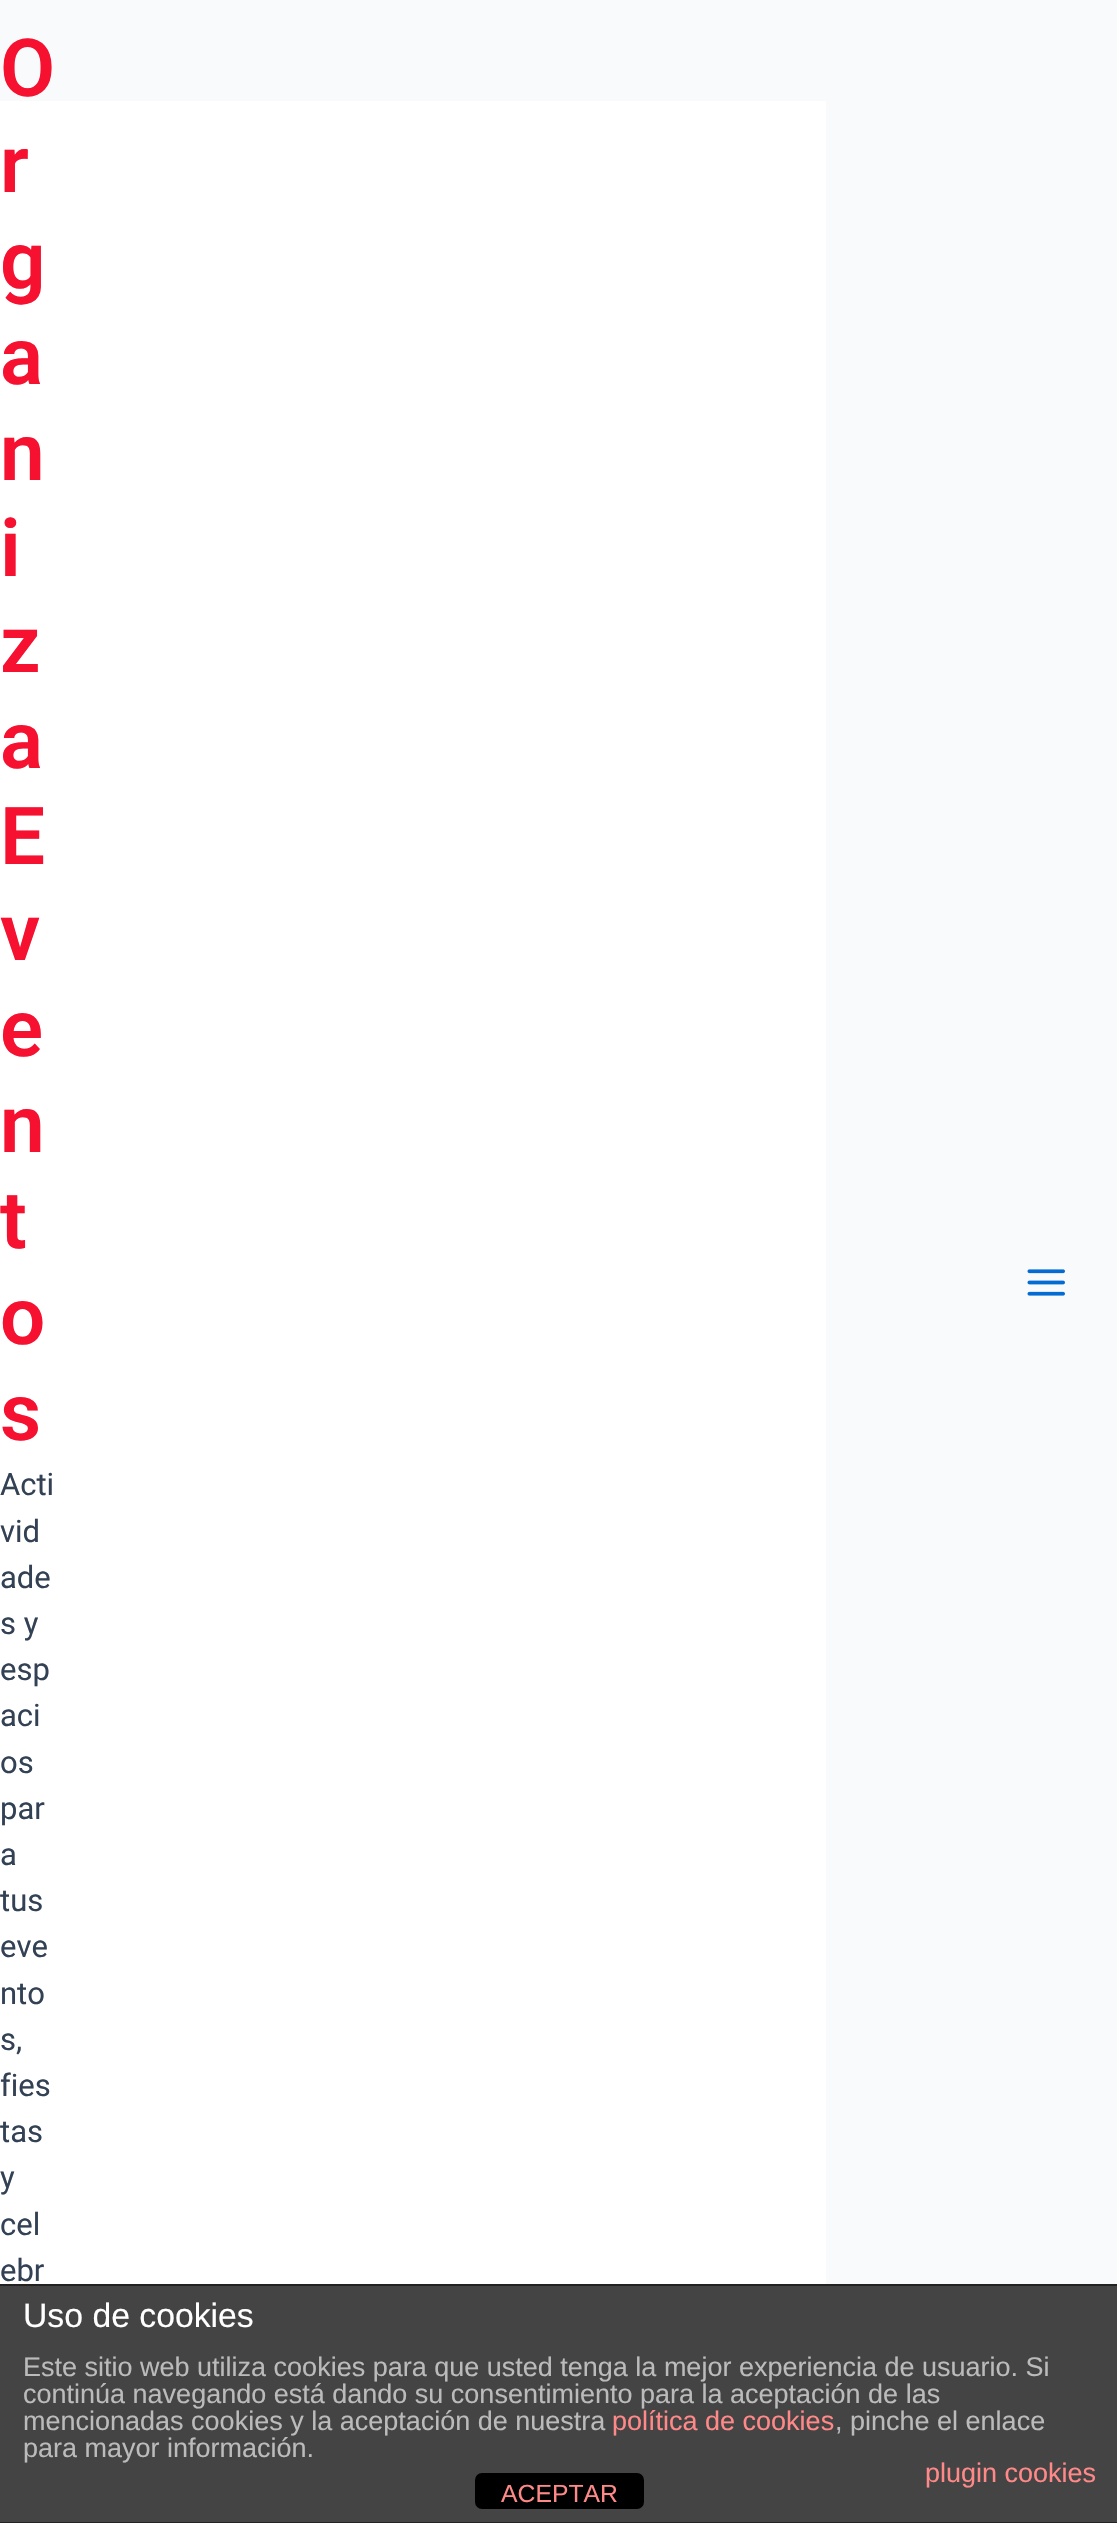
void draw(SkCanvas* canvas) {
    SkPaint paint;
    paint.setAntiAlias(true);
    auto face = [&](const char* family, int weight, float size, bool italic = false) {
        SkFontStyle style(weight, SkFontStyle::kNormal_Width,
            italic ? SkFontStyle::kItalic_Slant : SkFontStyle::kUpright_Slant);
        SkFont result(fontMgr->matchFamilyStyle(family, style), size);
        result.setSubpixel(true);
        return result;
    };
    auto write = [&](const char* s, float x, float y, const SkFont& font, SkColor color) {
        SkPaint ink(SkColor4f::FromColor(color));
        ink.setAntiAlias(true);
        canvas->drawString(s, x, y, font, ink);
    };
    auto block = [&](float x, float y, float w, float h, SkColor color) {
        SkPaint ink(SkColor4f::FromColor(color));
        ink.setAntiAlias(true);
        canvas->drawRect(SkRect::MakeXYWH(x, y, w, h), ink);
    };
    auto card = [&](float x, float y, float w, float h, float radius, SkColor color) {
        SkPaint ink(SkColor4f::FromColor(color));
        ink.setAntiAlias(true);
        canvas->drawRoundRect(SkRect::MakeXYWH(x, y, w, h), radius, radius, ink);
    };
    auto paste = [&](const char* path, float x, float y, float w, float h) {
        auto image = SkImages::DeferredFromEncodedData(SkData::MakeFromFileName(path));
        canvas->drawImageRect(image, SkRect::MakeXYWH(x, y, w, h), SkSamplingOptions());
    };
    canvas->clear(SkColorSetRGB(249, 250, 251));
    block(0, 101, 826, 2183, SK_ColorWHITE);
    auto kFont1 = face("Roboto", 600, 80);
    write("O", 0, 96, kFont1, SkColorSetRGB(245, 17, 47));
    write("r", 0, 192, kFont1, SkColorSetRGB(245, 17, 47));
    write("g", 0, 288, kFont1, SkColorSetRGB(245, 17, 47));
    write("a", 0, 384, kFont1, SkColorSetRGB(245, 17, 47));
    write("n", 0, 480, kFont1, SkColorSetRGB(245, 17, 47));
    write("i", 0, 576, kFont1, SkColorSetRGB(245, 17, 47));
    write("z", 0, 672, kFont1, SkColorSetRGB(245, 17, 47));
    write("a", 0, 768, kFont1, SkColorSetRGB(245, 17, 47));
    write("E", 0, 864, kFont1, SkColorSetRGB(245, 17, 47));
    write("v", 0, 960, kFont1, SkColorSetRGB(245, 17, 47));
    write("e", 0, 1056, kFont1, SkColorSetRGB(245, 17, 47));
    write("n", 0, 1152, kFont1, SkColorSetRGB(245, 17, 47));
    write("t", 0, 1248, kFont1, SkColorSetRGB(245, 17, 47));
    write("o", 0, 1344, kFont1, SkColorSetRGB(245, 17, 47));
    write("s", 0, 1440, kFont1, SkColorSetRGB(245, 17, 47));
    auto kFont2 = face("Roboto", 400, 31);
    write("Acti", 0, 1495, kFont2, SkColorSetRGB(51, 65, 85));
    write("vid", 0, 1542, kFont2, SkColorSetRGB(51, 65, 85));
    write("ade", 0, 1588, kFont2, SkColorSetRGB(51, 65, 85));
    write("s y", 0, 1634, kFont2, SkColorSetRGB(51, 65, 85));
    write("esp", 0, 1680, kFont2, SkColorSetRGB(51, 65, 85));
    write("aci", 0, 1726, kFont2, SkColorSetRGB(51, 65, 85));
    write("os", 0, 1773, kFont2, SkColorSetRGB(51, 65, 85));
    write("par", 0, 1819, kFont2, SkColorSetRGB(51, 65, 85));
    write("a", 0, 1865, kFont2, SkColorSetRGB(51, 65, 85));
    write("tus", 0, 1911, kFont2, SkColorSetRGB(51, 65, 85));
    write("eve", 0, 1957, kFont2, SkColorSetRGB(51, 65, 85));
    write("nto", 0, 2004, kFont2, SkColorSetRGB(51, 65, 85));
    write("s,", 0, 2050, kFont2, SkColorSetRGB(51, 65, 85));
    write("fies", 0, 2096, kFont2, SkColorSetRGB(51, 65, 85));
    write("tas", 0, 2142, kFont2, SkColorSetRGB(51, 65, 85));
    write("y", 0, 2188, kFont2, SkColorSetRGB(51, 65, 85));
    write("cel", 0, 2235, kFont2, SkColorSetRGB(51, 65, 85));
    write("ebr", 0, 2281, kFont2, SkColorSetRGB(51, 65, 85));
    paste("pic1.png", 1027, 1269, 38, 27);
    block(0, 2286, 1117, 236, SkColorSetRGB(68, 68, 68));
    block(0, 2284, 1117, 2, SkColorSetRGB(34, 34, 34));
    block(0, 2522, 1117, 1, SkColorSetRGB(34, 34, 34));
    auto kFont3 = face("Liberation Sans", 400, 33.75f);
    write("Uso de cookies", 23, 2327, kFont3, SK_ColorWHITE);
    auto kFont4 = face("Liberation Sans", 400, 27);
    write("Este sitio web utiliza cookies para que usted tenga la mejor experiencia de usuario. Si", 23, 2376, kFont4, SkColorSetRGB(187, 187, 187));
    write("continúa navegando está dando su consentimiento para la aceptación de las", 23, 2403, kFont4, SkColorSetRGB(187, 187, 187));
    write("mencionadas cookies y la aceptación de nuestra", 23, 2430, kFont4, SkColorSetRGB(187, 187, 187));
    write("política de cookies", 612, 2430, kFont4, SkColorSetRGB(255, 136, 136));
    write(", pinche el enlace", 835, 2430, kFont4, SkColorSetRGB(187, 187, 187));
    write("para mayor información.", 23, 2457, kFont4, SkColorSetRGB(187, 187, 187));
    write("plugin cookies", 925, 2482, kFont4, SkColorSetRGB(255, 136, 136));
    card(475, 2473, 169, 36, 7, SK_ColorBLACK);
    auto kFont5 = face("Liberation Sans", 400, 24.75f);
    write("ACEPTAR", 501, 2502, kFont5, SkColorSetRGB(255, 136, 136));
}
